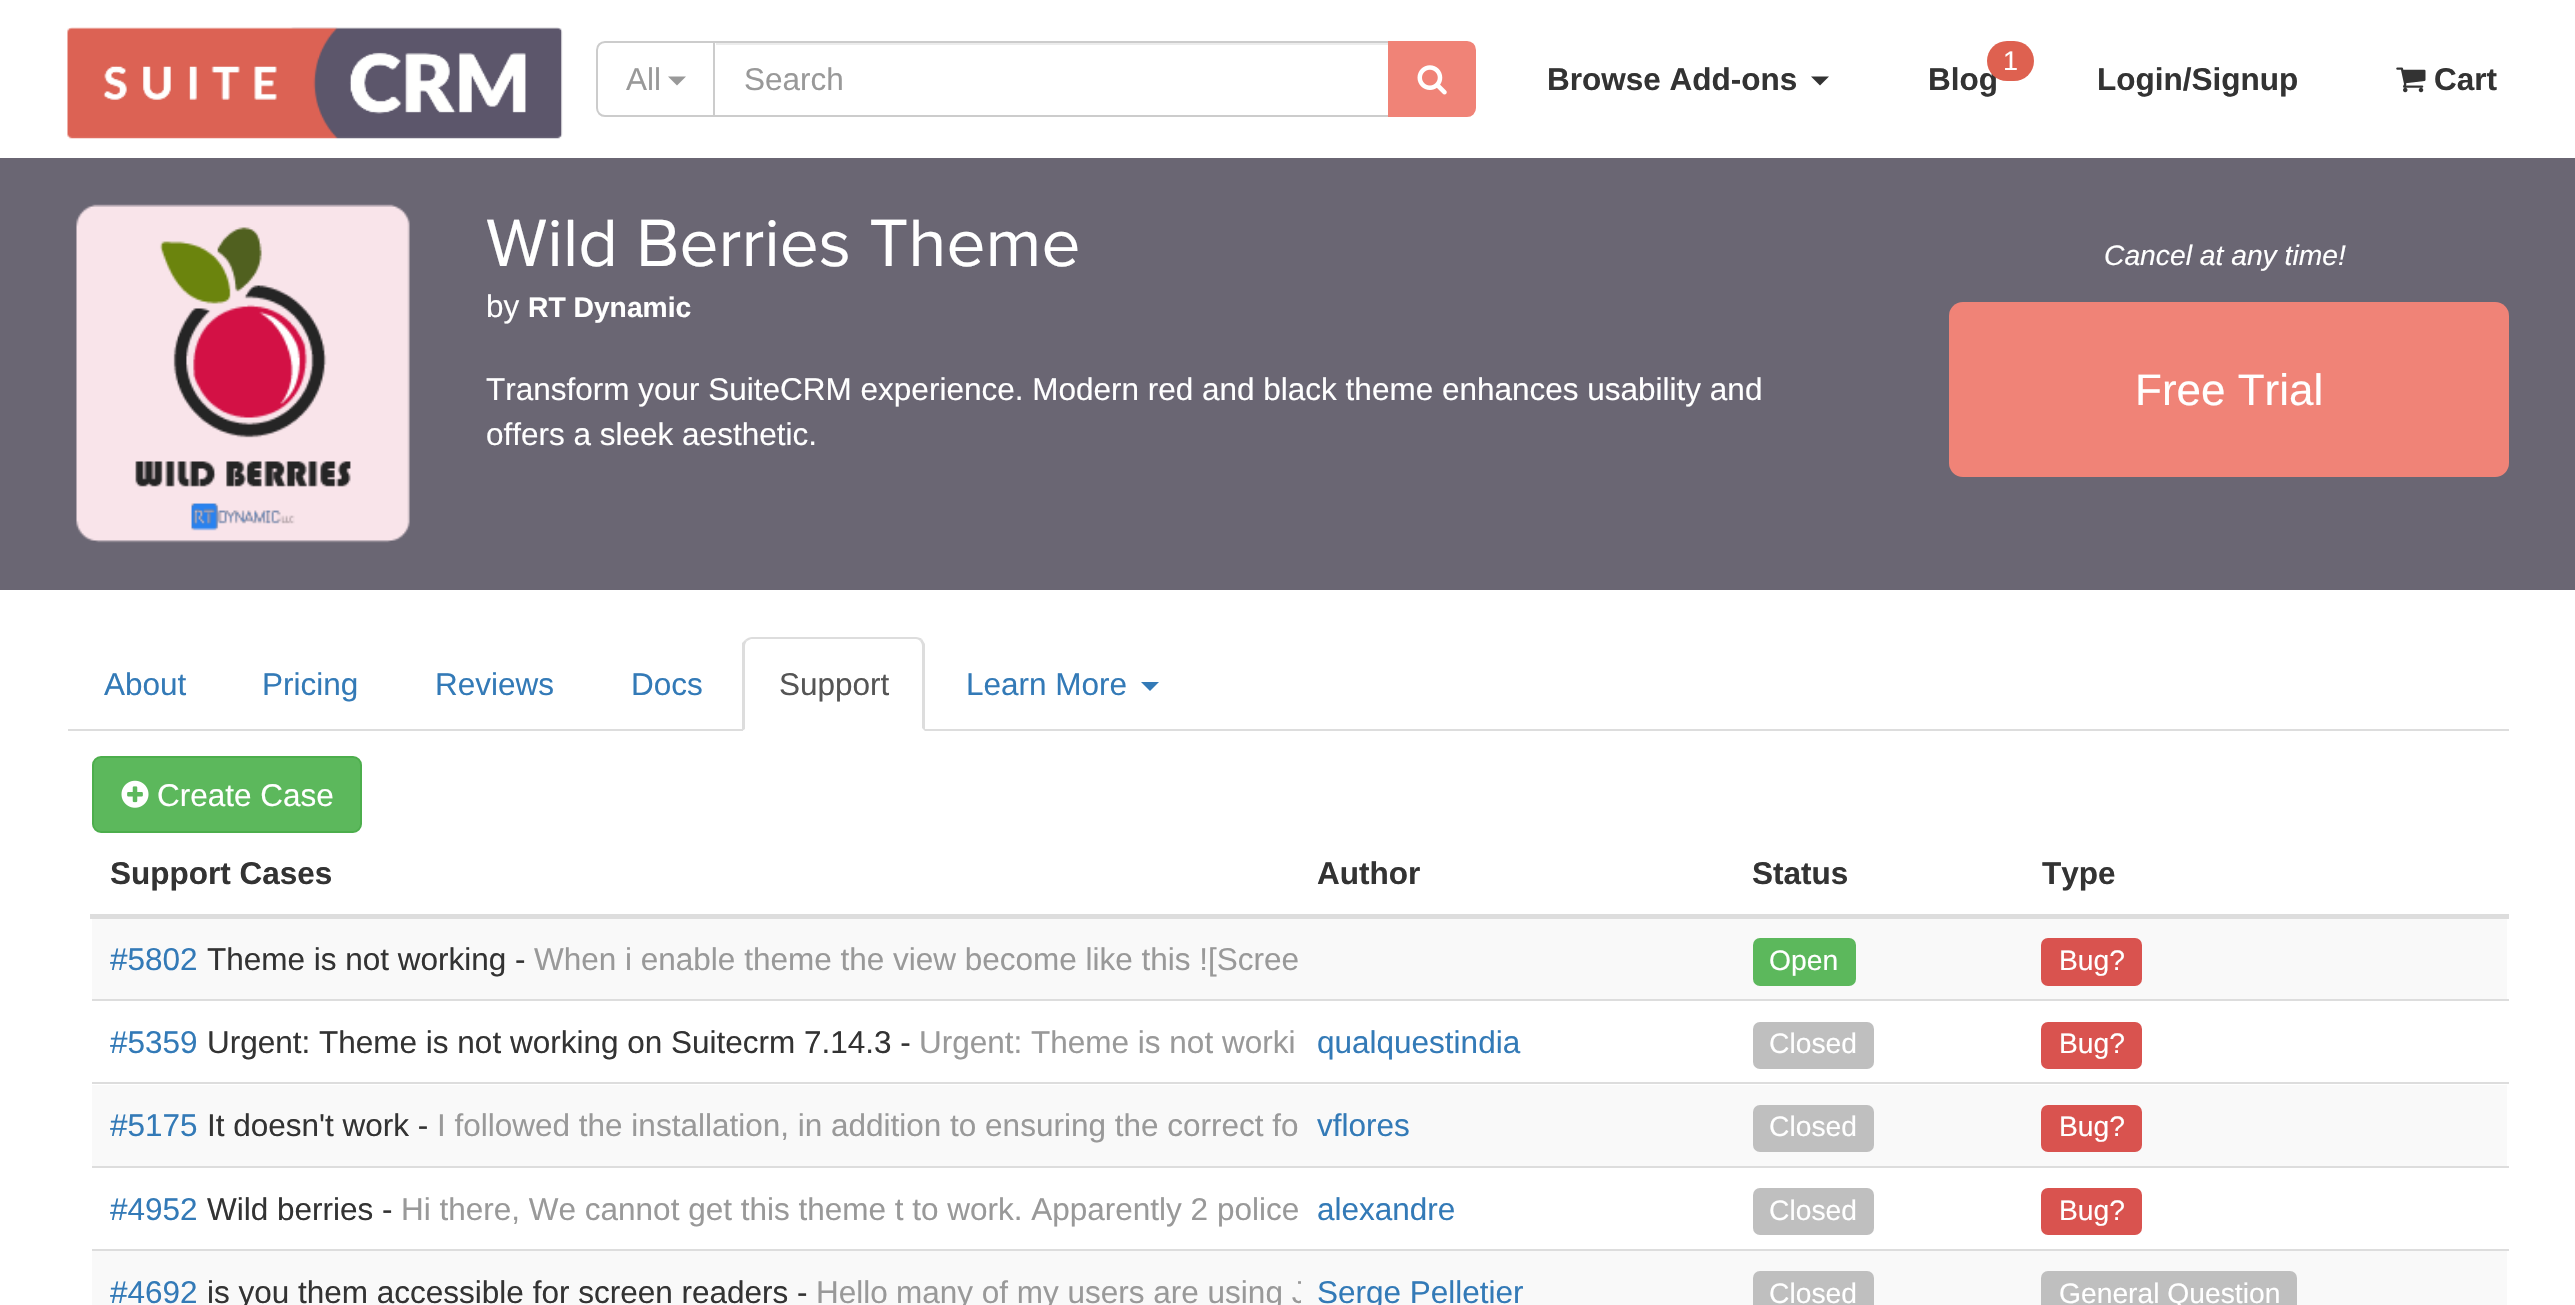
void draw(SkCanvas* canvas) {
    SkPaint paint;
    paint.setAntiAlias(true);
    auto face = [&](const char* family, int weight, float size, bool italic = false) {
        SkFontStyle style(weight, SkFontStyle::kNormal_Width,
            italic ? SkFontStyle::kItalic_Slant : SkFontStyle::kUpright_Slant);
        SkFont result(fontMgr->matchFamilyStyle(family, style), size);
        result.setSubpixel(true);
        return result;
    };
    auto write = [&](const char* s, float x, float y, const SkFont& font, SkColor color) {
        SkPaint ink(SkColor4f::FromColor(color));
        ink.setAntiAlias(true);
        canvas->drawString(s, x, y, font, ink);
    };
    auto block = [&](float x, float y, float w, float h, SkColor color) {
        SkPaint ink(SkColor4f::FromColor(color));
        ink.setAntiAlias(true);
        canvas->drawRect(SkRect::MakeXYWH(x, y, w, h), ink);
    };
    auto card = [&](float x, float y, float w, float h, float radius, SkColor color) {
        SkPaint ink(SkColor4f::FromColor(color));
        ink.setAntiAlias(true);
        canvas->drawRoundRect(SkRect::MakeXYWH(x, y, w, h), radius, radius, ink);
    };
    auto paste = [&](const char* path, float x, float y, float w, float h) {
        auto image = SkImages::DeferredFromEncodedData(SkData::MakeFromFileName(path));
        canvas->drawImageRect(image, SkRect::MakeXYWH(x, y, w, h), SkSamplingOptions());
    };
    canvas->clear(SK_ColorWHITE);
    paste("pic1.png", 67, 27, 496, 112);
    paint.setStyle(SkPaint::kStroke_Style);
    paint.setStrokeWidth(2);
    paint.setColor(SkColorSetRGB(204, 204, 204));
    canvas->drawPath(SkPathBuilder().moveTo(605, 42).lineTo(715, 42).lineTo(715, 116).lineTo(605, 116).cubicTo(600.5f, 116, 597, 112.5f, 597, 108).lineTo(597, 50).cubicTo(597, 45.5f, 600.5f, 42, 605, 42).close().detach(), paint);
    auto kFont1 = face("Liberation Sans", 400, 31.5f);
    write("All", 626, 90, kFont1, SkColorSetRGB(153, 153, 153));
    paint.setStyle(SkPaint::kFill_Style);
    paint.setColor(SkColorSetRGB(153, 153, 153));
    canvas->drawPath(SkPathBuilder().moveTo(668, 76.5f).lineTo(686, 76.5f).lineTo(677, 85.5f).close().detach(), paint);
    block(715, 43, 1, 72, SK_ColorWHITE);
    block(716, 43, 672, 2, SkColorSetRGB(236, 236, 236));
    paint.setStyle(SkPaint::kStroke_Style);
    paint.setColor(SkColorSetRGB(204, 204, 204));
    canvas->drawRect(SkRect::MakeXYWH(714, 42, 676, 74), paint);
    write("Search", 744, 90, kFont1, SkColorSetRGB(153, 153, 153));
    paint.setStyle(SkPaint::kFill_Style);
    paint.setColor(SkColorSetRGB(240, 131, 119));
    canvas->drawPath(SkPathBuilder().moveTo(1389, 42).lineTo(1467, 42).cubicTo(1471.5f, 42, 1475, 45.5f, 1475, 50).lineTo(1475, 108).cubicTo(1475, 112.5f, 1471.5f, 116, 1467, 116).lineTo(1389, 116).close().detach(), paint);
    paint.setStyle(SkPaint::kStroke_Style);
    canvas->drawPath(SkPathBuilder().moveTo(1389, 42).lineTo(1467, 42).cubicTo(1471.5f, 42, 1475, 45.5f, 1475, 50).lineTo(1475, 108).cubicTo(1475, 112.5f, 1471.5f, 116, 1467, 116).lineTo(1389, 116).close().detach(), paint);
    paste("pic2.png", 1417, 65, 30, 30);
    auto kFont2 = face("Liberation Sans", 700, 31.5f);
    write("Browse Add-ons", 1547, 90, kFont2, SkColorSetRGB(51, 51, 51));
    paint.setStyle(SkPaint::kFill_Style);
    paint.setColor(SkColorSetRGB(51, 51, 51));
    canvas->drawPath(SkPathBuilder().moveTo(1811, 76.5f).lineTo(1829, 76.5f).lineTo(1820, 85.5f).close().detach(), paint);
    write("Blog", 1928, 90, kFont2, SkColorSetRGB(51, 51, 51));
    card(1987, 41, 47, 40, 20, SkColorSetRGB(222, 97, 80));
    auto kFont3 = face("Liberation Sans", 400, 27);
    write("1", 2003, 70, kFont3, SK_ColorWHITE);
    write("Login/Signup", 2097, 90, kFont2, SkColorSetRGB(51, 51, 51));
    paste("pic3.png", 2396, 67, 30, 26);
    write("Cart", 2434, 90, kFont2, SkColorSetRGB(51, 51, 51));
    block(0, 158, 2575, 432, SkColorSetRGB(106, 102, 115));
    paste("pic4.png", 76, 204, 334, 339);
    auto kFont4 = face("Proxima Nova", 400, 69.25f);
    write("Wild Berries Theme", 486, 266, kFont4, SK_ColorWHITE);
    write("by", 486, 317, kFont1, SK_ColorWHITE);
    auto kFont5 = face("Liberation Sans", 700, 28.25f);
    write("RT Dynamic", 528, 317, kFont5, SK_ColorWHITE);
    write("Transform your SuiteCRM experience. Modern red and black theme enhances usability and", 486, 400, kFont1, SK_ColorWHITE);
    write("offers a sleek aesthetic.", 486, 445, kFont1, SK_ColorWHITE);
    auto kFont6 = face("Liberation Sans", 400, 28.25f, true);
    write("Cancel at any time!", 2104, 265, kFont6, SK_ColorWHITE);
    card(1949, 302, 560, 175, 14, SkColorSetRGB(240, 131, 119));
    auto kFont7 = face("Liberation Sans", 400, 44);
    write("Free Trial", 2135, 405, kFont7, SK_ColorWHITE);
    block(68, 729, 2441, 2, SkColorSetRGB(221, 221, 221));
    write("About", 104, 695, kFont1, SkColorSetRGB(51, 122, 183));
    write("Pricing", 262, 695, kFont1, SkColorSetRGB(51, 122, 183));
    write("Reviews", 435, 695, kFont1, SkColorSetRGB(51, 122, 183));
    write("Docs", 631, 695, kFont1, SkColorSetRGB(51, 122, 183));
    paint.setColor(SK_ColorWHITE);
    canvas->drawPath(SkPathBuilder().moveTo(752, 637).lineTo(916, 637).cubicTo(921, 637, 925, 641, 925, 646).lineTo(925, 731).lineTo(743, 731).lineTo(743, 646).cubicTo(743, 641, 747, 637, 752, 637).close().detach(), paint);
    paint.setColor(SkColorSetRGB(221, 221, 221));
    canvas->drawPath(SkPathBuilder().moveTo(752, 637).cubicTo(750, 637, 747, 638, 745, 640).lineTo(747, 641).lineTo(751, 639).lineTo(916, 639).cubicTo(918, 639, 919, 640, 920, 641).lineTo(922, 639).cubicTo(921, 638, 918, 637, 916, 637).close().detach(), paint);
    canvas->drawPath(SkPathBuilder().moveTo(922, 639).cubicTo(923, 641, 924, 642, 925, 644).lineTo(925, 731).lineTo(922, 728).lineTo(922, 646).cubicTo(922, 644, 921, 642, 920, 641).close().detach(), paint);
    canvas->drawPath(SkPathBuilder().moveTo(742, 643).lineTo(745, 640).lineTo(747, 641).cubicTo(746, 642, 745, 644, 745, 646).lineTo(745, 729).lineTo(742, 731).close().detach(), paint);
    write("Support", 779, 695, kFont1, SkColorSetRGB(85, 85, 85));
    write("Learn More", 966, 695, kFont1, SkColorSetRGB(51, 122, 183));
    paint.setColor(SkColorSetRGB(51, 122, 183));
    canvas->drawPath(SkPathBuilder().moveTo(1141, 682).lineTo(1159, 682).lineTo(1150, 691).close().detach(), paint);
    paint.setColor(SkColorSetRGB(92, 184, 92));
    canvas->drawRoundRect(SkRect::MakeXYWH(93, 757, 268, 75), 8, 8, paint);
    paint.setStyle(SkPaint::kStroke_Style);
    paint.setColor(SkColorSetRGB(76, 174, 76));
    canvas->drawRoundRect(SkRect::MakeXYWH(93, 757, 268, 75), 8, 8, paint);
    paste("pic5.png", 121, 780, 28, 28);
    write("Create Case", 157, 806, kFont1, SK_ColorWHITE);
    write("Support Cases", 110, 884, kFont2, SkColorSetRGB(51, 51, 51));
    write("Author", 1317, 884, kFont2, SkColorSetRGB(51, 51, 51));
    write("Status", 1752, 884, kFont2, SkColorSetRGB(51, 51, 51));
    block(90, 914, 2419, 5, SkColorSetRGB(221, 221, 221));
    write("Type", 2042, 884, kFont2, SkColorSetRGB(51, 51, 51));
    block(92, 919, 2415, 80, SkColorSetRGB(249, 249, 249));
    write("#5802", 110, 970, kFont1, SkColorSetRGB(51, 122, 183));
    write("Theme is not working -", 207, 970, kFont1, SkColorSetRGB(51, 51, 51));
    write("When i enable theme the view become like this ![Scree", 534, 970, kFont1, SkColorSetRGB(153, 153, 153));
    card(1753, 938, 103, 48, 7, SkColorSetRGB(92, 184, 92));
    auto kFont8 = face("Liberation Sans", 400, 28.25f);
    write("Open", 1769, 970, kFont8, SK_ColorWHITE);
    card(2041, 938, 101, 48, 7, SkColorSetRGB(217, 83, 79));
    write("Bug?", 2059, 970, kFont8, SK_ColorWHITE);
    write("#5359", 110, 1053, kFont1, SkColorSetRGB(51, 122, 183));
    write("Urgent: Theme is not working on Suitecrm 7.14.3 -", 207, 1053, kFont1, SkColorSetRGB(51, 51, 51));
    write("Urgent: Theme is not worki", 919, 1053, kFont1, SkColorSetRGB(153, 153, 153));
    write("qualquestindia", 1317, 1053, kFont1, SkColorSetRGB(51, 122, 183));
    card(1753, 1022, 121, 47, 7, SkColorSetRGB(191, 191, 191));
    write("Closed", 1769, 1053, kFont8, SK_ColorWHITE);
    block(92, 999, 2417, 2, SkColorSetRGB(221, 221, 221));
    card(2041, 1022, 101, 47, 7, SkColorSetRGB(217, 83, 79));
    write("Bug?", 2059, 1053, kFont8, SK_ColorWHITE);
    block(92, 1085, 2415, 81, SkColorSetRGB(249, 249, 249));
    write("#5175", 110, 1136, kFont1, SkColorSetRGB(51, 122, 183));
    write("It doesn't work -", 207, 1136, kFont1, SkColorSetRGB(51, 51, 51));
    write("I followed the installation, in addition to ensuring the correct fo", 437, 1136, kFont1, SkColorSetRGB(153, 153, 153));
    write("vflores", 1317, 1136, kFont1, SkColorSetRGB(51, 122, 183));
    card(1753, 1105, 121, 47, 7, SkColorSetRGB(191, 191, 191));
    write("Closed", 1769, 1136, kFont8, SK_ColorWHITE);
    block(92, 1082, 2417, 2, SkColorSetRGB(221, 221, 221));
    card(2041, 1105, 101, 47, 7, SkColorSetRGB(217, 83, 79));
    write("Bug?", 2059, 1136, kFont8, SK_ColorWHITE);
    write("#4952", 110, 1220, kFont1, SkColorSetRGB(51, 122, 183));
    write("Wild berries -", 207, 1220, kFont1, SkColorSetRGB(51, 51, 51));
    write("Hi there, We cannot get this theme t to work. Apparently 2 police", 401, 1220, kFont1, SkColorSetRGB(153, 153, 153));
    write("alexandre", 1317, 1220, kFont1, SkColorSetRGB(51, 122, 183));
    card(1753, 1188, 121, 47, 7, SkColorSetRGB(191, 191, 191));
    write("Closed", 1769, 1220, kFont8, SK_ColorWHITE);
    block(92, 1166, 2417, 2, SkColorSetRGB(221, 221, 221));
    card(2041, 1188, 101, 47, 7, SkColorSetRGB(217, 83, 79));
    write("Bug?", 2059, 1220, kFont8, SK_ColorWHITE);
    block(92, 1251, 2415, 54, SkColorSetRGB(249, 249, 249));
    write("#4692", 110, 1303, kFont1, SkColorSetRGB(51, 122, 183));
    write("is you them accessible for screen readers -", 207, 1303, kFont1, SkColorSetRGB(51, 51, 51));
    write("Hello", 816, 1303, kFont1, SkColorSetRGB(153, 153, 153));
    canvas->save();
    canvas->clipRect(SkRect::MakeXYWH(92, 1253, 1209, 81));
    write("many of my users are using J", 896, 1303, kFont1, SkColorSetRGB(153, 153, 153));
    canvas->restore();
    write("Serge Pelletier", 1317, 1303, kFont1, SkColorSetRGB(51, 122, 183));
    card(1753, 1271, 121, 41, 7, SkColorSetRGB(191, 191, 191));
    write("Closed", 1769, 1303, kFont8, SK_ColorWHITE);
    block(92, 1249, 2417, 2, SkColorSetRGB(221, 221, 221));
    card(2041, 1271, 256, 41, 7, SkColorSetRGB(191, 191, 191));
    write("General Question", 2059, 1303, kFont8, SK_ColorWHITE);
}
